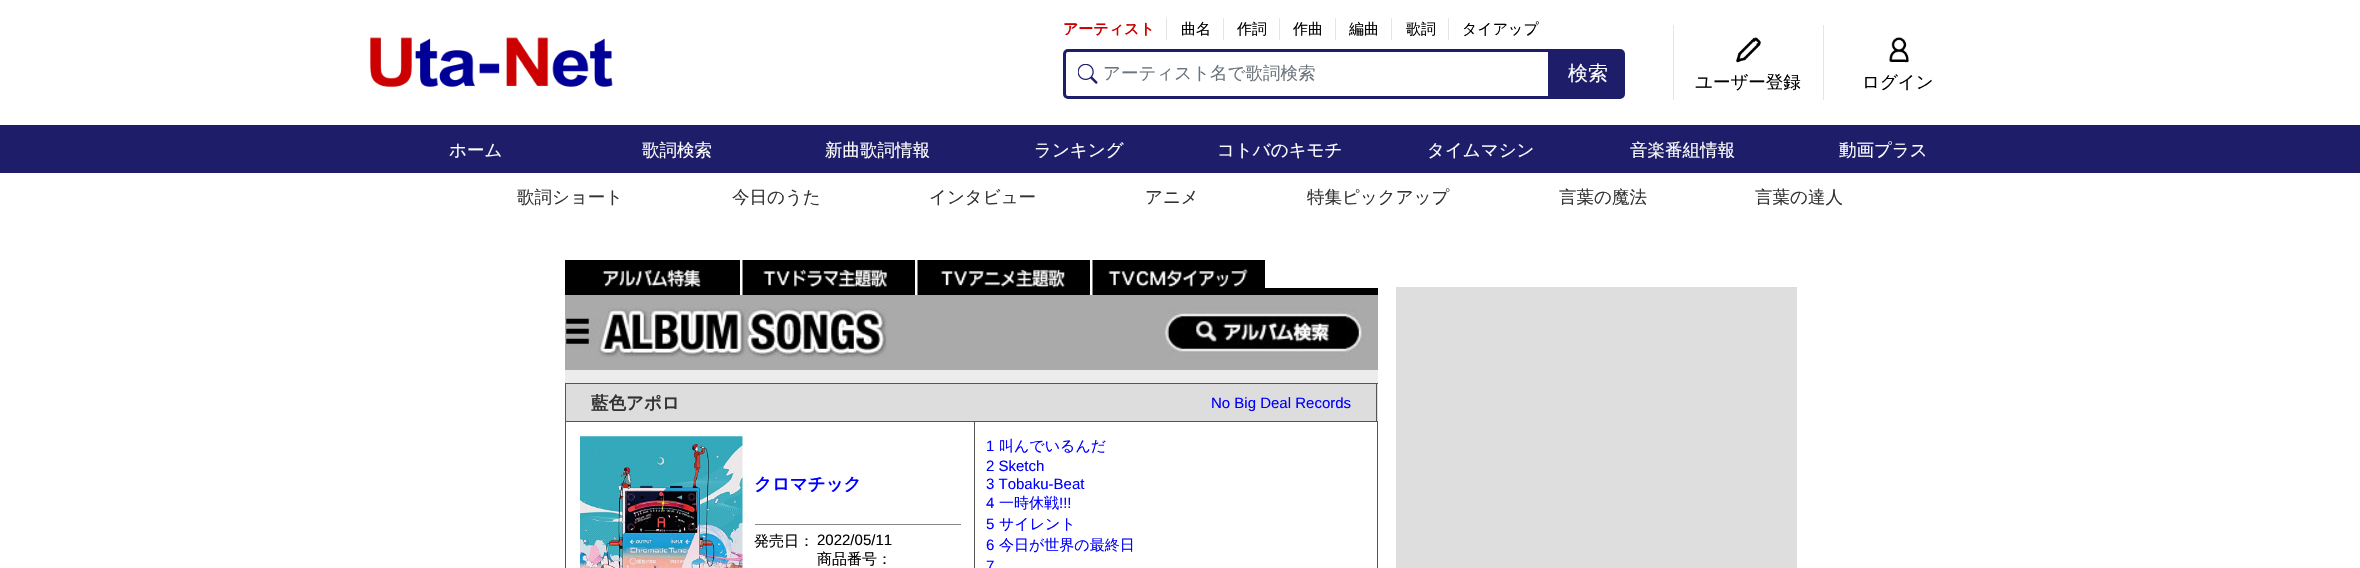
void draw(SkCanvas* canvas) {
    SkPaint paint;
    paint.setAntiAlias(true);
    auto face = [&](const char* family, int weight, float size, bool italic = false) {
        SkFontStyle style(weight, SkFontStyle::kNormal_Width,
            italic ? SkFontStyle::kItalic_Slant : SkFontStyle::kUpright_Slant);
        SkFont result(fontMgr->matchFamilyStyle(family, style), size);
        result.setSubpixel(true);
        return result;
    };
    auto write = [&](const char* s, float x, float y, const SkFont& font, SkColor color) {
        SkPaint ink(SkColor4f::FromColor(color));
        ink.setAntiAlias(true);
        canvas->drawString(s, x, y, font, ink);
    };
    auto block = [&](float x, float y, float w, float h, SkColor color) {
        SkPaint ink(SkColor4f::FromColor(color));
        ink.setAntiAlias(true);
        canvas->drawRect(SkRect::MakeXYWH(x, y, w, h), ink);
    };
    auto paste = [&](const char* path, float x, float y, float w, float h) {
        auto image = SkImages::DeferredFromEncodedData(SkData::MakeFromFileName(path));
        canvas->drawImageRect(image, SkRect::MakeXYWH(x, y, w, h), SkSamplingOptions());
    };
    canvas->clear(SK_ColorWHITE);
    paste("pic1.png", 370, 37, 243, 50);
    block(1166, 18, 1, 22, SkColorSetRGB(229, 229, 229));
    auto kFont1 = face("WenQuanYi Zen Hei", 700, 15);
    write("アーティスト", 1063, 34, kFont1, SkColorSetRGB(204, 0, 0));
    block(1223, 18, 1, 22, SkColorSetRGB(229, 229, 229));
    auto kFont2 = face("WenQuanYi Zen Hei", 500, 15);
    write("曲名", 1181, 34, kFont2, SK_ColorBLACK);
    block(1279, 18, 1, 22, SkColorSetRGB(229, 229, 229));
    write("作詞", 1237, 34, kFont2, SK_ColorBLACK);
    block(1335, 18, 1, 22, SkColorSetRGB(229, 229, 229));
    write("作曲", 1293, 34, kFont2, SK_ColorBLACK);
    block(1391, 18, 1, 22, SkColorSetRGB(229, 229, 229));
    write("編曲", 1349, 34, kFont2, SK_ColorBLACK);
    block(1448, 18, 1, 22, SkColorSetRGB(229, 229, 229));
    write("歌詞", 1406, 34, kFont2, SK_ColorBLACK);
    write("タイアップ", 1462, 34, kFont2, SK_ColorBLACK);
    paste("pic2.png", 1078, 64, 20, 20);
    paint.setStyle(SkPaint::kStroke_Style);
    paint.setStrokeWidth(3);
    paint.setColor(SkColorSetRGB(29, 29, 106));
    canvas->drawPath(SkPathBuilder().moveTo(1068, 50.5f).lineTo(1549.5f, 50.5f).lineTo(1549.5f, 97.5f).lineTo(1068, 97.5f).cubicTo(1066, 97.5f, 1064.5f, 96, 1064.5f, 94).lineTo(1064.5f, 54).cubicTo(1064.5f, 52, 1066, 50.5f, 1068, 50.5f).close().detach(), paint);
    auto kFont3 = face("WenQuanYi Zen Hei", 500, 17.5f);
    write("アーティスト名で歌詞検索", 1103, 79, kFont3, SkColorSetRGB(108, 117, 125));
    paint.setStyle(SkPaint::kFill_Style);
    canvas->drawPath(SkPathBuilder().moveTo(1551.5f, 50.5f).lineTo(1620, 50.5f).cubicTo(1622, 50.5f, 1623.5f, 52, 1623.5f, 54).lineTo(1623.5f, 94).cubicTo(1623.5f, 96, 1622, 97.5f, 1620, 97.5f).lineTo(1551.5f, 97.5f).close().detach(), paint);
    paint.setStyle(SkPaint::kStroke_Style);
    canvas->drawPath(SkPathBuilder().moveTo(1551.5f, 50.5f).lineTo(1620, 50.5f).cubicTo(1622, 50.5f, 1623.5f, 52, 1623.5f, 54).lineTo(1623.5f, 94).cubicTo(1623.5f, 96, 1622, 97.5f, 1620, 97.5f).lineTo(1551.5f, 97.5f).close().detach(), paint);
    auto kFont4 = face("WenQuanYi Zen Hei", 500, 20);
    write("検索", 1568, 80, kFont4, SK_ColorWHITE);
    paste("pic3.png", 1736, 37, 26, 26);
    block(1673, 25, 1, 75, SkColorSetRGB(229, 229, 229));
    write("ユーザー登録", 1695, 88, kFont3, SK_ColorBLACK);
    paste("pic4.png", 1889, 37, 20, 26);
    block(1823, 25, 1, 75, SkColorSetRGB(229, 229, 229));
    write("ログイン", 1862, 88, kFont3, SK_ColorBLACK);
    block(0, 125, 2360, 48, SkColorSetRGB(29, 29, 106));
    write("ホーム", 449, 156, kFont3, SK_ColorWHITE);
    write("歌詞検索", 642, 156, kFont3, SK_ColorWHITE);
    write("新曲歌詞情報", 825, 156, kFont3, SK_ColorWHITE);
    write("ランキング", 1034, 156, kFont3, SK_ColorWHITE);
    write("コトバのキモチ", 1217, 156, kFont3, SK_ColorWHITE);
    write("タイムマシン", 1427, 156, kFont3, SK_ColorWHITE);
    write("音楽番組情報", 1630, 156, kFont3, SK_ColorWHITE);
    write("動画プラス", 1839, 156, kFont3, SK_ColorWHITE);
    write("歌詞ショート", 517, 203, kFont3, SkColorSetRGB(51, 51, 51));
    write("今日のうた", 732, 203, kFont3, SkColorSetRGB(51, 51, 51));
    write("インタビュー", 929, 203, kFont3, SkColorSetRGB(51, 51, 51));
    write("アニメ", 1145, 203, kFont3, SkColorSetRGB(51, 51, 51));
    write("特集ピックアップ", 1307, 203, kFont3, SkColorSetRGB(51, 51, 51));
    write("言葉の魔法", 1559, 203, kFont3, SkColorSetRGB(51, 51, 51));
    write("言葉の達人", 1755, 203, kFont3, SkColorSetRGB(51, 51, 51));
    paste("pic5.png", 565, 260, 175, 35);
    paste("pic6.png", 742, 260, 173, 35);
    paste("pic7.png", 917, 260, 173, 35);
    paste("pic8.png", 1092, 260, 173, 35);
    block(1396, 287, 401, 281, SkColorSetRGB(222, 222, 222));
    block(565, 370, 813, 13, SkColorSetRGB(236, 236, 236));
    block(1265, 288, 113, 7, SK_ColorBLACK);
    block(565, 295, 813, 75, SkColorSetRGB(170, 170, 170));
    paste("pic9.png", 566, 307, 800, 51);
    block(566, 384, 812, 37, SkColorSetRGB(221, 221, 221));
    block(565, 383, 813, 1, SkColorSetRGB(85, 85, 85));
    block(565, 383, 1, 38, SkColorSetRGB(85, 85, 85));
    auto kFont5 = face("WenQuanYi Zen Hei", 700, 17.5f);
    write("藍色アポロ", 591, 409, kFont5, SkColorSetRGB(51, 51, 51));
    block(1376, 383, 1, 38, SkColorSetRGB(85, 85, 85));
    auto kFont6 = face("Liberation Sans", 400, 15);
    write("No Big Deal Records", 1211, 408, kFont6, SkColorSetRGB(0, 0, 255));
    block(565, 421, 409, 1, SkColorSetRGB(85, 85, 85));
    block(565, 421, 1, 147, SkColorSetRGB(85, 85, 85));
    paste("pic10.png", 580, 436, 163, 132);
    block(755, 524, 206, 1, SkColorSetRGB(136, 136, 136));
    write("クロマチック", 754, 490, kFont5, SkColorSetRGB(0, 0, 255));
    write("発売日：", 754, 546, kFont2, SK_ColorBLACK);
    write("2022/05/11", 817, 545, kFont6, SK_ColorBLACK);
    write("商品番号：", 817, 564, kFont2, SK_ColorBLACK);
    paint.setStrokeWidth(1);
    paint.setColor(SkColorSetRGB(85, 85, 85));
    canvas->drawRect(SkRect::MakeXYWH(974.5f, 421.5f, 403, 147), paint);
    write("1", 986, 451, kFont6, SkColorSetRGB(0, 0, 255));
    write("叫んでいるんだ", 999, 451, kFont2, SkColorSetRGB(0, 0, 255));
    write("2 Sketch", 986, 471, kFont6, SkColorSetRGB(0, 0, 255));
    write("3 Tobaku-Beat", 986, 489, kFont6, SkColorSetRGB(0, 0, 255));
    write("4", 986, 508, kFont6, SkColorSetRGB(0, 0, 255));
    write("一時休戦", 999, 508, kFont2, SkColorSetRGB(0, 0, 255));
    write("!!!", 1059, 508, kFont6, SkColorSetRGB(0, 0, 255));
    write("5", 986, 529, kFont6, SkColorSetRGB(0, 0, 255));
    write("サイレント", 999, 529, kFont2, SkColorSetRGB(0, 0, 255));
    write("6", 986, 550, kFont6, SkColorSetRGB(0, 0, 255));
    write("今日が世界の最終日", 999, 550, kFont2, SkColorSetRGB(0, 0, 255));
    write("7", 986, 571, kFont6, SkColorSetRGB(0, 0, 255));
}
